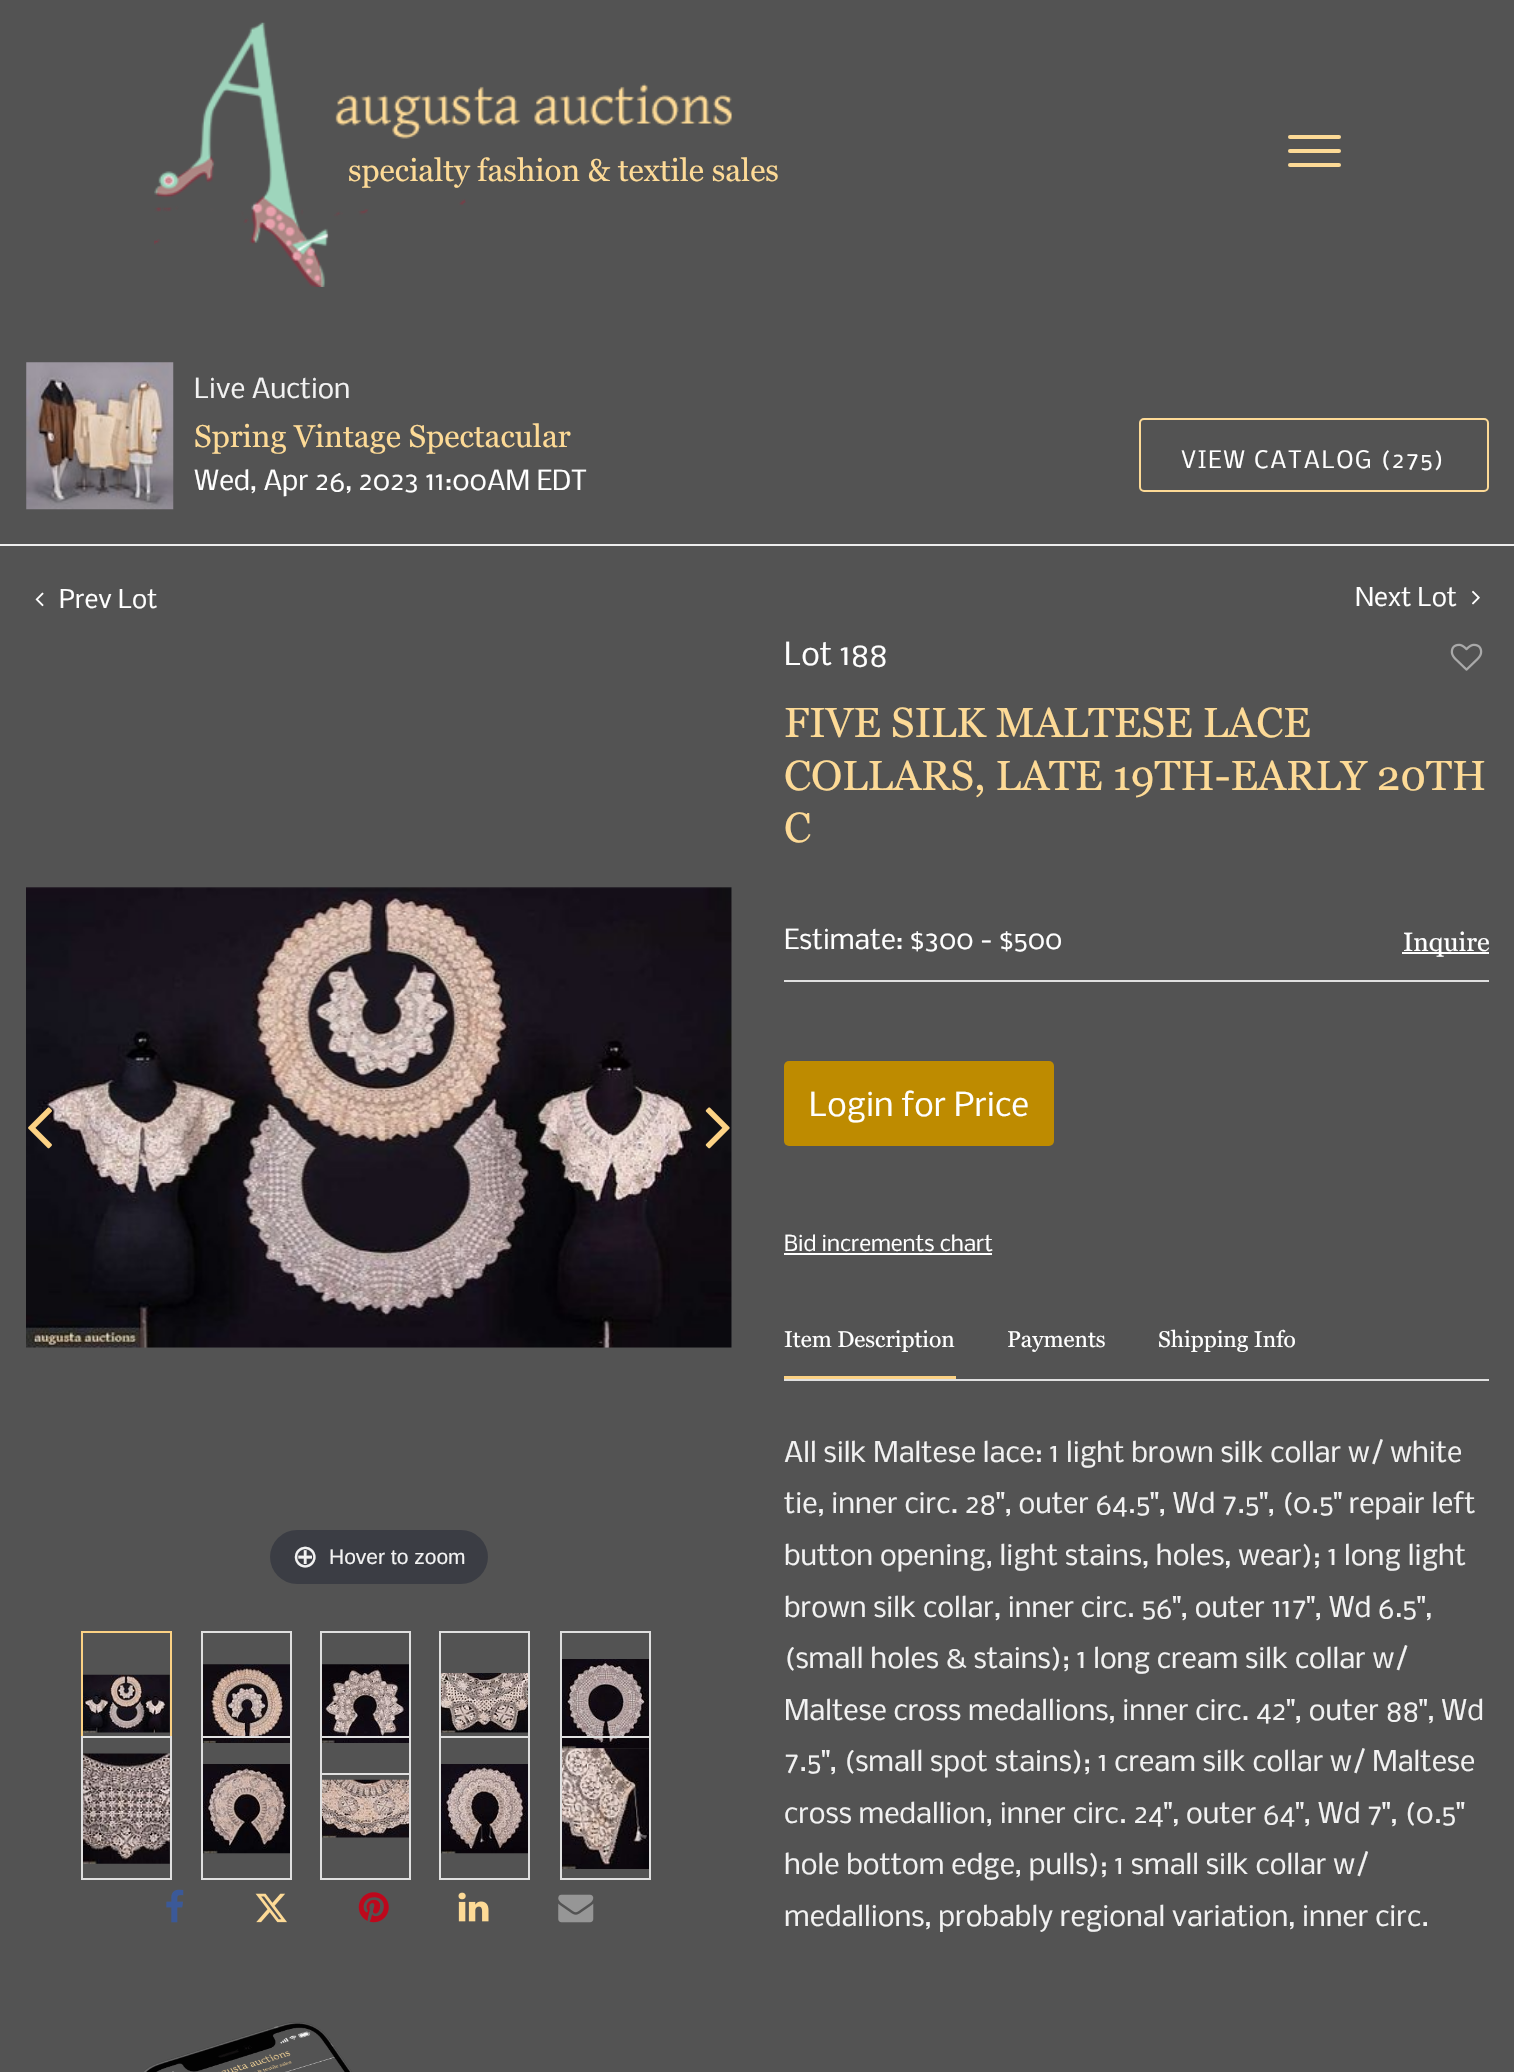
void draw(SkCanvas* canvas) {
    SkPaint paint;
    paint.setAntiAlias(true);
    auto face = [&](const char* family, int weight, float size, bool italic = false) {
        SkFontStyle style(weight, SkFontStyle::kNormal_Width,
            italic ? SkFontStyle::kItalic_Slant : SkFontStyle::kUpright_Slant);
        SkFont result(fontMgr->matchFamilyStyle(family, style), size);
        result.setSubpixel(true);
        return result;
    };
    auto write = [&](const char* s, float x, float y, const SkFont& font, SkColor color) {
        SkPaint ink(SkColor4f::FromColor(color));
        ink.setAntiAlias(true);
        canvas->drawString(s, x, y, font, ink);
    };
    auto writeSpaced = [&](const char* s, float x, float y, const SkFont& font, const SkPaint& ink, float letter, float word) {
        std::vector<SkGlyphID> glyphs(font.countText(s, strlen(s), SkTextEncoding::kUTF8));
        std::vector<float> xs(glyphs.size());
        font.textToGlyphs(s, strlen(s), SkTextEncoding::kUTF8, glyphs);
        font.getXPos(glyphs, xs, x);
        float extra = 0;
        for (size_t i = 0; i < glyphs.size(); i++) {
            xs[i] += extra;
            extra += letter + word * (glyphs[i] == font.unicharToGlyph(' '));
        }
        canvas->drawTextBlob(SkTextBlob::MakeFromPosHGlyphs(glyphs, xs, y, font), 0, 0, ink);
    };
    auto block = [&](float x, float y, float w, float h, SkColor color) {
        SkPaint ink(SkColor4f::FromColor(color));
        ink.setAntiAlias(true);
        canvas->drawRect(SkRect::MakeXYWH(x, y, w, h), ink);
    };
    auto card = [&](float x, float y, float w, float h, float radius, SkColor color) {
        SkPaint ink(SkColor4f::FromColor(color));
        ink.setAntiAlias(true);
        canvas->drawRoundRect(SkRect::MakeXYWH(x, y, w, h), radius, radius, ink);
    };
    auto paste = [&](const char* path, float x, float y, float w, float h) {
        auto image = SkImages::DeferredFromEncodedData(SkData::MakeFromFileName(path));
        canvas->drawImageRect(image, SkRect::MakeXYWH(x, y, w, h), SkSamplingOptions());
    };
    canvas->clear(SkColorSetRGB(83, 83, 83));
    card(1288, 135, 53, 4, 2, SkColorSetRGB(253, 218, 150));
    card(1288, 149, 53, 4, 2, SkColorSetRGB(253, 218, 150));
    card(1288, 163, 53, 4, 2, SkColorSetRGB(253, 218, 150));
    paste("pic1.png", 154, 22, 578, 265);
    auto kFont1 = face("Georgia", 400, 31.5f);
    write("specialty fashion & textile sales", 348, 181, kFont1, SkColorSetRGB(253, 218, 150));
    paste("pic2.png", 26, 362, 148, 148);
    auto kFont2 = face("Nobile", 400, 26.25f);
    write("Live Auction", 194, 398, kFont2, SkColorSetRGB(242, 242, 242));
    write("Spring Vintage Spectacular", 194, 447, kFont1, SkColorSetRGB(253, 218, 150));
    write("Wed, Apr 26, 2023 11:00AM EDT", 194, 490, kFont2, SK_ColorWHITE);
    paint.setStyle(SkPaint::kStroke_Style);
    paint.setStrokeWidth(2);
    paint.setColor(SkColorSetRGB(253, 218, 150));
    canvas->drawRoundRect(SkRect::MakeXYWH(1140, 419, 348, 72), 4, 4, paint);
    auto kFont3 = face("Nobile", 400, 22.75f);
    paint.setStyle(SkPaint::kFill_Style);
    paint.setColor(SK_ColorWHITE);
    writeSpaced("VIEW CATALOG (275)", 1181, 468, kFont3, paint, 1.75f, 0);
    block(0, 544, 1514, 2, SkColorSetRGB(238, 238, 238));
    paste("pic3.png", 35, 592, 9, 15);
    auto kFont4 = face("Nobile", 400, 24.5f);
    write("Prev Lot", 59, 608, kFont4, SK_ColorWHITE);
    write("Next Lot", 1355, 606, kFont4, SK_ColorWHITE);
    paste("pic4.png", 1472, 590, 8, 15);
    paste("pic7.png", 26, 887, 706, 461);
    paste("pic5.png", 28, 1107, 24, 42);
    paste("pic6.png", 705, 1107, 25, 42);
    card(270, 1530, 218, 54, 27, SkColorSetRGB(59, 61, 68));
    auto kFont5 = face("DejaVu Sans", 400, 31.5f);
    write("⊕", 292, 1567, kFont5, SkColorSetRGB(242, 242, 242));
    auto kFont6 = face("Liberation Sans", 400, 21);
    write("Hover to zoom", 329, 1564, kFont6, SkColorSetRGB(242, 242, 242));
    paste("pic8.png", 83, 1674, 87, 59);
    paint.setStyle(SkPaint::kStroke_Style);
    paint.setColor(SkColorSetRGB(252, 210, 132));
    canvas->drawRect(SkRect::MakeXYWH(82, 1632, 89, 142), paint);
    paste("pic9.png", 203, 1664, 87, 79);
    paint.setColor(SkColorSetRGB(224, 224, 224));
    canvas->drawRect(SkRect::MakeXYWH(202, 1632, 89, 142), paint);
    paste("pic10.png", 322, 1664, 87, 79);
    canvas->drawRect(SkRect::MakeXYWH(321, 1632, 89, 142), paint);
    paste("pic11.png", 441, 1673, 87, 60);
    canvas->drawRect(SkRect::MakeXYWH(440, 1632, 89, 142), paint);
    paste("pic12.png", 562, 1659, 87, 90);
    canvas->drawRect(SkRect::MakeXYWH(561, 1632, 89, 142), paint);
    paste("pic13.png", 83, 1753, 87, 111);
    canvas->drawRect(SkRect::MakeXYWH(82, 1737, 89, 142), paint);
    paste("pic14.png", 203, 1764, 87, 90);
    canvas->drawRect(SkRect::MakeXYWH(202, 1737, 89, 142), paint);
    paste("pic15.png", 322, 1779, 87, 59);
    canvas->drawRect(SkRect::MakeXYWH(321, 1737, 89, 142), paint);
    paste("pic16.png", 441, 1764, 87, 90);
    canvas->drawRect(SkRect::MakeXYWH(440, 1737, 89, 142), paint);
    paste("pic17.png", 562, 1748, 87, 121);
    canvas->drawRect(SkRect::MakeXYWH(561, 1737, 89, 142), paint);
    paste("pic18.png", 166, 1889, 18, 34);
    paste("pic19.png", 255, 1893, 32, 30);
    paste("pic20.png", 358, 1892, 31, 31);
    paste("pic21.png", 458, 1892, 31, 30);
    paste("pic22.png", 558, 1894, 36, 29);
    auto kFont7 = face("Nobile", 400, 30);
    write("Lot 188", 784, 665, kFont7, SK_ColorWHITE);
    paste("pic23.png", 1450, 643, 33, 28);
    auto kFont8 = face("Georgia", 400, 42);
    write("FIVE SILK MALTESE LACE", 784, 737, kFont8, SkColorSetRGB(253, 218, 150));
    write("COLLARS, LATE 19TH-EARLY 20TH", 784, 790, kFont8, SkColorSetRGB(253, 218, 150));
    write("C", 784, 842, kFont8, SkColorSetRGB(253, 218, 150));
    block(784, 980, 705, 2, SkColorSetRGB(224, 224, 224));
    write("Estimate: $300 - $500", 784, 949, kFont2, SK_ColorWHITE);
    block(1402, 952, 87, 2, SK_ColorWHITE);
    auto kFont9 = face("Georgia", 400, 26.25f);
    write("Inquire", 1403, 951, kFont9, SK_ColorWHITE);
    card(784, 1061, 270, 85, 5, SkColorSetRGB(190, 139, 0));
    auto kFont10 = face("Nobile", 400, 31.5f);
    write("Login for Price", 809, 1116, kFont10, SK_ColorWHITE);
    auto kFont11 = face("Nobile", 400, 21);
    write("Bid increments chart", 784, 1251, kFont11, SK_ColorWHITE);
    block(784, 1253, 208, 2, SK_ColorWHITE);
    block(784, 1379, 705, 2, SkColorSetRGB(224, 224, 224));
    auto kFont12 = face("Georgia", 400, 22.75f);
    write("Item Description", 784, 1347, kFont12, SK_ColorWHITE);
    block(784, 1376, 172, 3, SkColorSetRGB(252, 210, 132));
    write("Payments", 1007, 1347, kFont12, SK_ColorWHITE);
    write("Shipping Info", 1158, 1347, kFont12, SK_ColorWHITE);
    auto kFont13 = face("Nobile", 400, 27.1f);
    write("All silk Maltese lace: 1 light brown silk collar w/ white", 784, 1462, kFont13, SkColorSetRGB(242, 242, 242));
    write("tie, inner circ. 28\", outer 64.5\", Wd 7.5\", (0.5\" repair left", 784, 1513, kFont13, SkColorSetRGB(242, 242, 242));
    write("button opening, light stains, holes, wear); 1 long light", 784, 1565, kFont13, SkColorSetRGB(242, 242, 242));
    write("brown silk collar, inner circ. 56\", outer 117\", Wd 6.5\",", 784, 1617, kFont13, SkColorSetRGB(242, 242, 242));
    write("(small holes & stains); 1 long cream silk collar w/", 784, 1668, kFont13, SkColorSetRGB(242, 242, 242));
    write("Maltese cross medallions, inner circ. 42\", outer 88\", Wd", 784, 1720, kFont13, SkColorSetRGB(242, 242, 242));
    write("7.5\", (small spot stains); 1 cream silk collar w/ Maltese", 784, 1771, kFont13, SkColorSetRGB(242, 242, 242));
    write("cross medallion, inner circ. 24\", outer 64\", Wd 7\", (0.5\"", 784, 1823, kFont13, SkColorSetRGB(242, 242, 242));
    write("hole bottom edge, pulls); 1 small silk collar w/", 784, 1874, kFont13, SkColorSetRGB(242, 242, 242));
    canvas->save();
    canvas->clipRect(SkRect::MakeXYWH(784, 1407, 705, 525));
    write("medallions, probably regional variation, inner circ.", 784, 1926, kFont13, SkColorSetRGB(242, 242, 242));
    canvas->restore();
    paste("pic24.png", 144, 2022, 208, 50);
}
